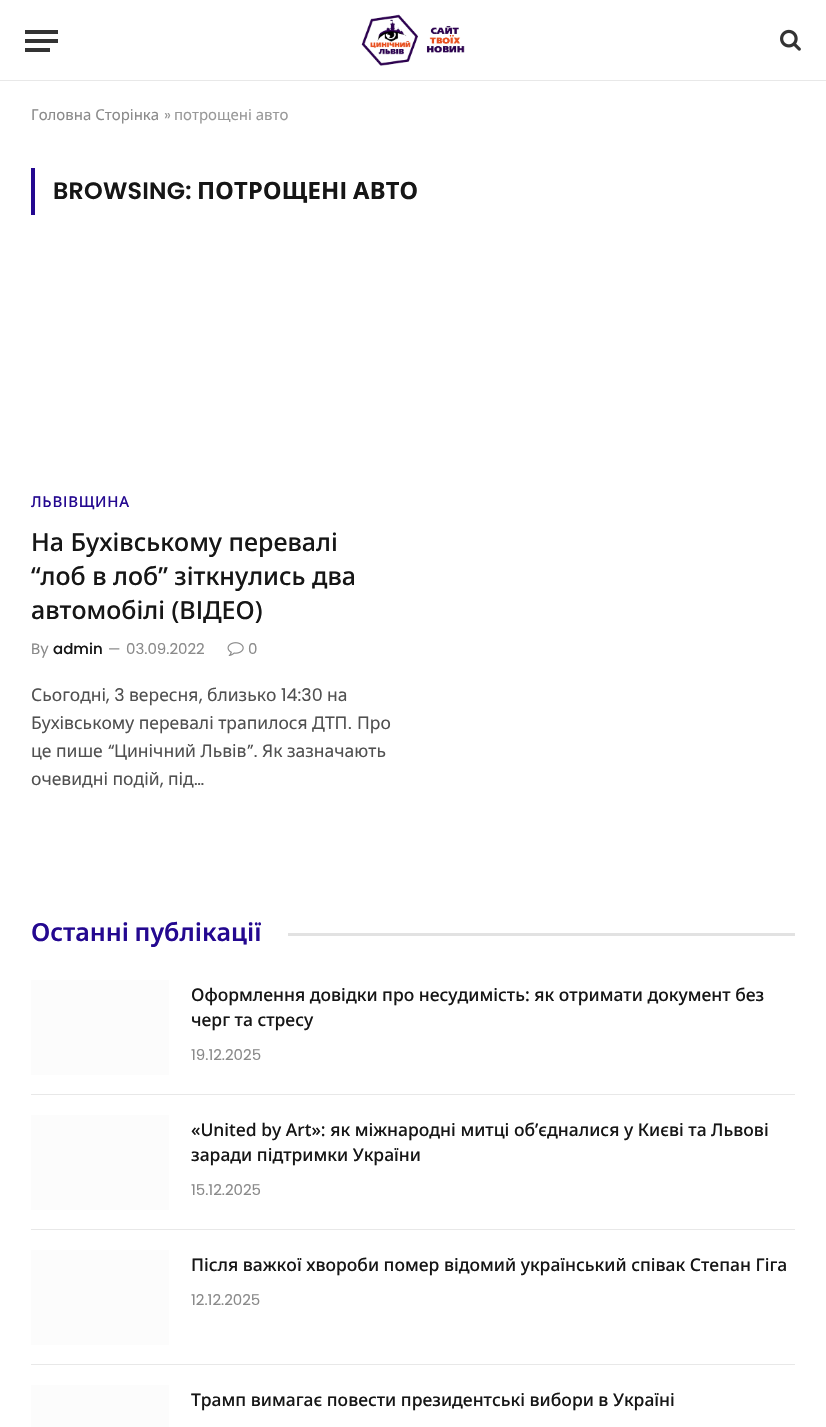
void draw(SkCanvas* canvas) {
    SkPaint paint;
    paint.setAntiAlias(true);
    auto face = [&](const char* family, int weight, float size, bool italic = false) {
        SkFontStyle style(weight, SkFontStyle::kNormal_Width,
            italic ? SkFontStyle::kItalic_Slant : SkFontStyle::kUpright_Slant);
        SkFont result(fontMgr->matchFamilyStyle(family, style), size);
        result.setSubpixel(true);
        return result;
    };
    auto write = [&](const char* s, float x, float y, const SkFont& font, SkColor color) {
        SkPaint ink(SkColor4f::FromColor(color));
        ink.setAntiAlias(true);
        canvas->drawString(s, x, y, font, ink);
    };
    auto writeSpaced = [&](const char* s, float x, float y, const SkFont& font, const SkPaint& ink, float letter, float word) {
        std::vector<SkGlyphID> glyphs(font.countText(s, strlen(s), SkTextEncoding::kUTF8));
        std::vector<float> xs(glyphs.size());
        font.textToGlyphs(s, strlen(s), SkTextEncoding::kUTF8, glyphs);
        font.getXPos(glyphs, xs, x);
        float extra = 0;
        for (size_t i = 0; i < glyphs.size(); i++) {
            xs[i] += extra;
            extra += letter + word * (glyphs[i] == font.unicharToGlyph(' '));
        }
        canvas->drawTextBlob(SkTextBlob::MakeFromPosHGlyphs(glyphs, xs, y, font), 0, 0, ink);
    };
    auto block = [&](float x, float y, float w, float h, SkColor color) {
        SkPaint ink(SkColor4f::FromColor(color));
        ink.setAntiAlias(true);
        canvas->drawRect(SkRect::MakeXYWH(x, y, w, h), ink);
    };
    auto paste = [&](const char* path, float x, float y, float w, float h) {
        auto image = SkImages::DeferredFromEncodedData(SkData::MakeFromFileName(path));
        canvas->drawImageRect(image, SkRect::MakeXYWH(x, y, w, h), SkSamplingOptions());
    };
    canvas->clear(SK_ColorWHITE);
    block(0, 80, 826, 1, SkColorSetRGB(232, 232, 232));
    block(25, 48, 25, 4, SkColorSetRGB(51, 51, 51));
    block(25, 30, 33, 4, SkColorSetRGB(51, 51, 51));
    block(25, 39, 33, 4, SkColorSetRGB(51, 51, 51));
    paste("pic1.png", 361, 14, 104, 52);
    paste("pic2.png", 780, 29, 21, 22);
    auto kFont1 = face("Noto Sans", 400, 15);
    write("Головна Сторінка", 31, 120, kFont1, SkColorSetRGB(138, 138, 138));
    auto kFont2 = face("Poppins", 400, 15);
    write("»", 164, 120, kFont2, SkColorSetRGB(153, 153, 153));
    write("потрощені авто", 174, 120, kFont1, SkColorSetRGB(153, 153, 153));
    block(31, 168, 4, 47, SkColorSetRGB(36, 8, 144));
    auto kFont3 = face("Poppins", 600, 23.75f);
    paint.setColor(SkColorSetRGB(22, 22, 22));
    writeSpaced("BROWSING:", 53, 199, kFont3, paint, 0.25f, 0);
    auto kFont4 = face("Noto Sans", 700, 23.75f);
    writeSpaced("ПОТРОЩЕНІ АВТО", 197, 199, kFont4, paint, 0.25f, -1);
    auto kFont5 = face("Noto Sans", 500, 15);
    paint.setColor(SkColorSetRGB(36, 8, 144));
    writeSpaced("ЛЬВІВЩИНА", 31, 507, kFont5, paint, 0.75f, 0);
    auto kFont6 = face("Noto Sans", 500, 25);
    write("На Бухівському перевалі", 31, 551, kFont6, SkColorSetRGB(22, 22, 22));
    write("“лоб в лоб” зіткнулись два", 31, 585, kFont6, SkColorSetRGB(22, 22, 22));
    write("автомобілі (ВІДЕО)", 31, 619, kFont6, SkColorSetRGB(22, 22, 22));
    write("By", 31, 654, kFont2, SkColorSetRGB(138, 138, 138));
    auto kFont7 = face("Poppins", 500, 15);
    write("admin", 53, 654, kFont7, SkColorSetRGB(22, 22, 22));
    auto kFont8 = face("Poppins", 400, 14);
    write("—", 108, 654, kFont8, SkColorSetRGB(138, 138, 138));
    write("03.09.2022", 126, 654, kFont2, SkColorSetRGB(138, 138, 138));
    paste("pic3.png", 227, 642, 17, 14);
    write("0", 248, 654, kFont2, SkColorSetRGB(138, 138, 138));
    auto kFont9 = face("Noto Sans", 400, 17.5f);
    write("Сьогодні", 31, 701, kFont9, SkColorSetRGB(80, 80, 80));
    auto kFont10 = face("Poppins", 400, 17.5f);
    write(", 3", 106, 701, kFont10, SkColorSetRGB(80, 80, 80));
    write("вересня", 129, 701, kFont9, SkColorSetRGB(80, 80, 80));
    write(",", 199, 701, kFont10, SkColorSetRGB(80, 80, 80));
    write("близько", 207, 701, kFont9, SkColorSetRGB(80, 80, 80));
    write("14:30", 281, 701, kFont10, SkColorSetRGB(80, 80, 80));
    write("на", 327, 701, kFont9, SkColorSetRGB(80, 80, 80));
    write("Бухівському перевалі трапилося ДТП", 31, 729, kFont9, SkColorSetRGB(80, 80, 80));
    write(".", 348, 729, kFont10, SkColorSetRGB(80, 80, 80));
    write("Про", 357, 729, kFont9, SkColorSetRGB(80, 80, 80));
    write("це пише", 31, 757, kFont9, SkColorSetRGB(80, 80, 80));
    write("“", 108, 757, kFont10, SkColorSetRGB(80, 80, 80));
    write("Цинічний Львів", 114, 757, kFont9, SkColorSetRGB(80, 80, 80));
    write("”.", 247, 757, kFont10, SkColorSetRGB(80, 80, 80));
    write("Як зазначають", 262, 757, kFont9, SkColorSetRGB(80, 80, 80));
    write("очевидні подій", 31, 785, kFont9, SkColorSetRGB(80, 80, 80));
    write(",", 160, 785, kFont10, SkColorSetRGB(80, 80, 80));
    write("під", 168, 785, kFont9, SkColorSetRGB(80, 80, 80));
    write("…", 194, 785, kFont10, SkColorSetRGB(80, 80, 80));
    auto kFont11 = face("Noto Sans", 600, 25);
    writeSpaced("Останні публікації", 31, 941, kFont11, paint, 0, -1);
    block(288, 933, 507, 3, SkColorSetRGB(226, 226, 226));
    block(31, 980, 138, 95, SkColorSetRGB(252, 252, 252));
    auto kFont12 = face("Noto Sans", 500, 17.5f);
    write("Оформлення довідки про несудимість: як отримати документ без", 191, 1001, kFont12, SkColorSetRGB(22, 22, 22));
    write("черг та стресу", 191, 1026, kFont12, SkColorSetRGB(22, 22, 22));
    write("19.12.2025", 191, 1060, kFont2, SkColorSetRGB(138, 138, 138));
    block(31, 1094, 764, 1, SkColorSetRGB(232, 232, 232));
    block(31, 1115, 138, 95, SkColorSetRGB(252, 252, 252));
    write("«United by Art»: як міжнародні митці об’єдналися у Києві та Львові", 191, 1136, kFont12, SkColorSetRGB(22, 22, 22));
    write("заради підтримки України", 191, 1161, kFont12, SkColorSetRGB(22, 22, 22));
    write("15.12.2025", 191, 1195, kFont2, SkColorSetRGB(138, 138, 138));
    block(31, 1229, 764, 1, SkColorSetRGB(232, 232, 232));
    block(31, 1250, 138, 95, SkColorSetRGB(252, 252, 252));
    write("Після важкої хвороби помер відомий український співак Степан Гіга", 191, 1271, kFont12, SkColorSetRGB(22, 22, 22));
    write("12.12.2025", 191, 1305, kFont2, SkColorSetRGB(138, 138, 138));
    block(31, 1364, 764, 1, SkColorSetRGB(232, 232, 232));
    block(31, 1385, 138, 42, SkColorSetRGB(252, 252, 252));
    write("Трамп вимагає повести президентські вибори в Україні", 191, 1406, kFont12, SkColorSetRGB(22, 22, 22));
}
